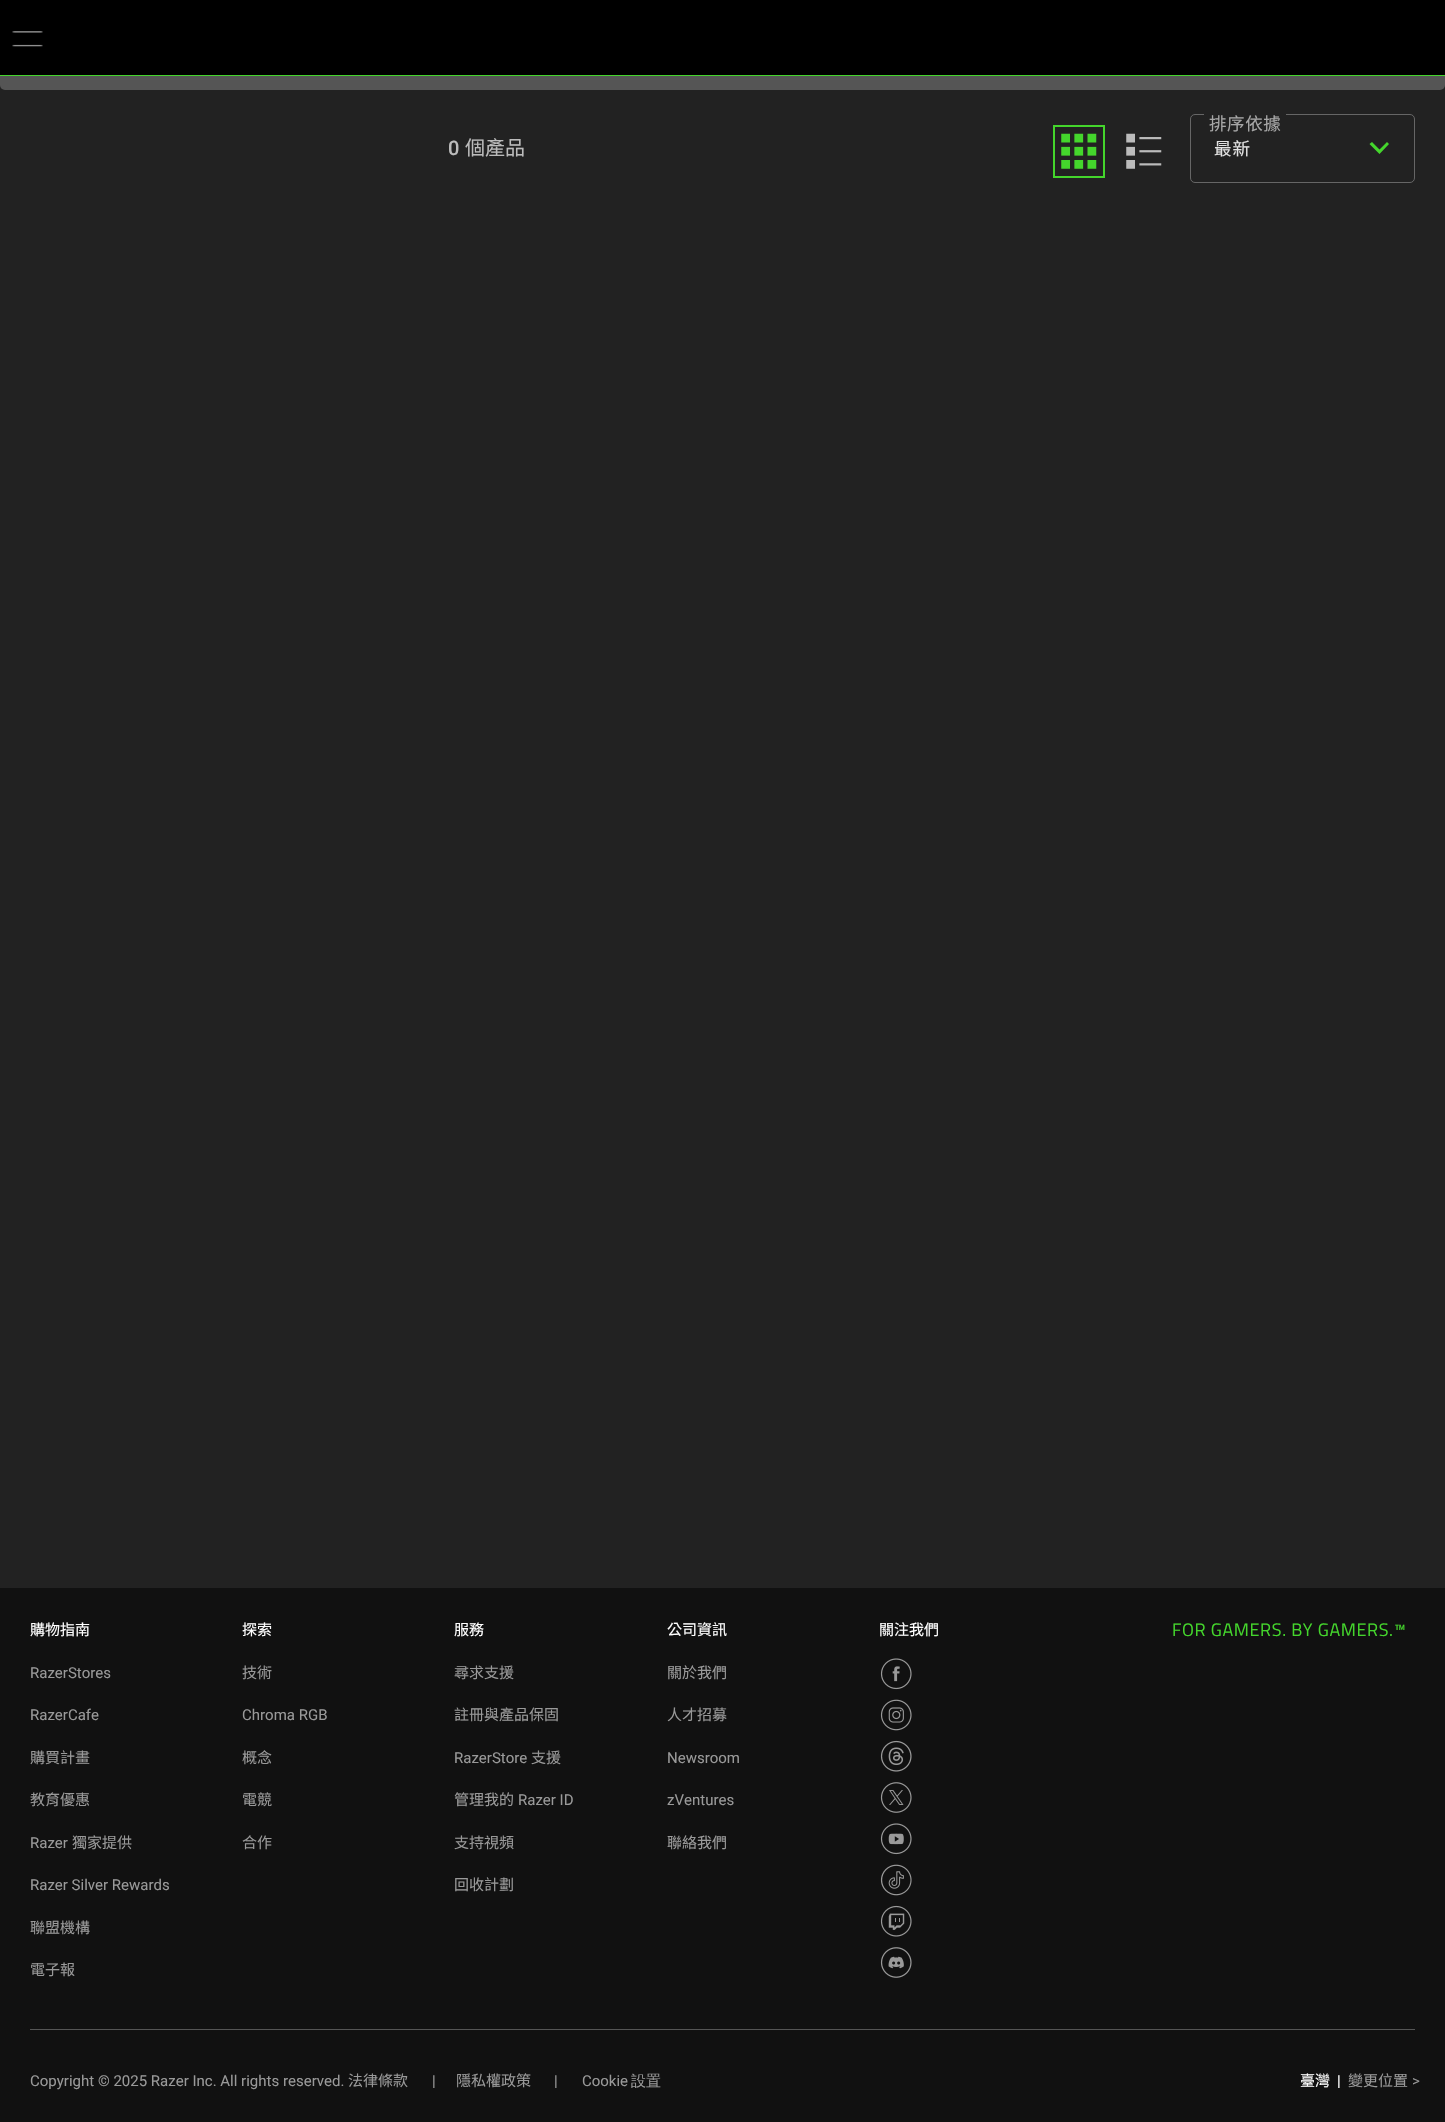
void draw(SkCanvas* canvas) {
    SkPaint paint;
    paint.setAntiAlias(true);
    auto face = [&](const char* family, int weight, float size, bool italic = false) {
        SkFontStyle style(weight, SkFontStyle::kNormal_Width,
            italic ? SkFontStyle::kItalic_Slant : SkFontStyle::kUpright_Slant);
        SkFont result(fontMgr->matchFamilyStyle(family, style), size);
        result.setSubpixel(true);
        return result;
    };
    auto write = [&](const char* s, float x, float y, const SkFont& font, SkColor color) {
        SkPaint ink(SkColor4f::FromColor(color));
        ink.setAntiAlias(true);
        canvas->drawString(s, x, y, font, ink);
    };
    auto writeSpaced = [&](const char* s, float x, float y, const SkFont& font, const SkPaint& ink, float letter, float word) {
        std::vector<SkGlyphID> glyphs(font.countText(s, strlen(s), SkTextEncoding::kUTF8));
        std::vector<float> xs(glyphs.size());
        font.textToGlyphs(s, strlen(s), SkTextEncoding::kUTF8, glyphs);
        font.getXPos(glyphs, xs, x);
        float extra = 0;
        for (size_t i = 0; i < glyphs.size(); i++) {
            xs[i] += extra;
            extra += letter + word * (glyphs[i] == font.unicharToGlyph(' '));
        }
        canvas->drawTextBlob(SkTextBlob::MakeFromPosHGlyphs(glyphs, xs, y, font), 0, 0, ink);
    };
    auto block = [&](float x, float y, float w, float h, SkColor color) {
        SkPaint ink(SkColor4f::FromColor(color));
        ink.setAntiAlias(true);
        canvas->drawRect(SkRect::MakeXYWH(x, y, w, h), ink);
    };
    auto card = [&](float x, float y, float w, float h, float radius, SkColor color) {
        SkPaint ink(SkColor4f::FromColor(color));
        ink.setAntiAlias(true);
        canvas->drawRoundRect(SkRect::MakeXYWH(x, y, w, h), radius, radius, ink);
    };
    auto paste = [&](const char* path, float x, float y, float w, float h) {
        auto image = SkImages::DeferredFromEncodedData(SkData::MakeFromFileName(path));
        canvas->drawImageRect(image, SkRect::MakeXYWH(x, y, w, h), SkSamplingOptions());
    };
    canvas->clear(SkColorSetRGB(34, 34, 34));
    card(0, 35, 1445, 55, 5, SkColorSetRGB(85, 85, 85));
    block(0, 0, 1445, 75, SK_ColorBLACK);
    block(0, 75, 1445, 1, SkColorSetRGB(68, 214, 44));
    paste("pic1.png", 12, 31, 31, 16);
    auto kFont1 = face("Roboto", 500, 20);
    write("0", 448, 155, kFont1, SkColorSetRGB(187, 187, 187));
    auto kFont2 = face("Noto Sans CJK TC", 400, 20);
    write("個產品", 465, 155, kFont2, SkColorSetRGB(187, 187, 187));
    paste("pic2.png", 1053, 125, 52, 53);
    paste("pic3.png", 1126, 133, 36, 36);
    paint.setStyle(SkPaint::kStroke_Style);
    paint.setStrokeWidth(1);
    paint.setColor(SkColorSetRGB(102, 102, 102));
    canvas->drawRoundRect(SkRect::MakeXYWH(1190.5f, 114.5f, 224, 68), 4.5f, 4.5f, paint);
    block(1204, 114, 82, 1, SkColorSetRGB(34, 34, 34));
    auto kFont3 = face("Noto Sans CJK TC", 400, 17.5f);
    paint.setStyle(SkPaint::kFill_Style);
    paint.setColor(SkColorSetRGB(167, 167, 167));
    writeSpaced("排序依據", 1209, 130, kFont3, paint, 0.6f, 0);
    paint.setColor(SkColorSetRGB(226, 226, 226));
    writeSpaced("最新", 1214, 155, kFont3, paint, 1, 0);
    paint.setColor(SkColorSetRGB(68, 214, 44));
    canvas->drawPath(SkPathBuilder().moveTo(1387, 142).lineTo(1389, 144).lineTo(1379.5f, 154).lineTo(1369.5f, 144).lineTo(1372, 142).lineTo(1379.5f, 149.5f).close().detach(), paint);
    block(0, 1588, 1445, 534, SkColorSetRGB(17, 17, 17));
    auto kFont4 = face("Noto Sans CJK TC", 400, 15);
    write("購物指南", 30, 1635, kFont4, SK_ColorWHITE);
    auto kFont5 = face("Roboto", 400, 15);
    write("RazerStores", 30, 1678, kFont5, SkColorSetRGB(153, 153, 153));
    write("RazerCafe", 30, 1720, kFont5, SkColorSetRGB(153, 153, 153));
    write("購買計畫", 30, 1763, kFont4, SkColorSetRGB(153, 153, 153));
    write("教育優惠", 30, 1805, kFont4, SkColorSetRGB(153, 153, 153));
    write("Razer", 30, 1848, kFont5, SkColorSetRGB(153, 153, 153));
    write("獨家提供", 72, 1848, kFont4, SkColorSetRGB(153, 153, 153));
    write("Razer Silver Rewards", 30, 1890, kFont5, SkColorSetRGB(153, 153, 153));
    write("聯盟機構", 30, 1933, kFont4, SkColorSetRGB(153, 153, 153));
    write("電子報", 30, 1975, kFont4, SkColorSetRGB(153, 153, 153));
    write("探索", 242, 1635, kFont4, SK_ColorWHITE);
    write("技術", 242, 1678, kFont4, SkColorSetRGB(153, 153, 153));
    write("Chroma RGB", 242, 1720, kFont5, SkColorSetRGB(153, 153, 153));
    write("概念", 242, 1763, kFont4, SkColorSetRGB(153, 153, 153));
    write("電競", 242, 1805, kFont4, SkColorSetRGB(153, 153, 153));
    write("合作", 242, 1848, kFont4, SkColorSetRGB(153, 153, 153));
    write("服務", 454, 1635, kFont4, SK_ColorWHITE);
    write("尋求支援", 454, 1678, kFont4, SkColorSetRGB(153, 153, 153));
    write("註冊與產品保固", 454, 1720, kFont4, SkColorSetRGB(153, 153, 153));
    write("RazerStore", 454, 1763, kFont5, SkColorSetRGB(153, 153, 153));
    write("支援", 531, 1763, kFont4, SkColorSetRGB(153, 153, 153));
    write("管理我的", 454, 1805, kFont4, SkColorSetRGB(153, 153, 153));
    write("Razer ID", 518, 1805, kFont5, SkColorSetRGB(153, 153, 153));
    write("支持視頻", 454, 1848, kFont4, SkColorSetRGB(153, 153, 153));
    write("回收計劃", 454, 1890, kFont4, SkColorSetRGB(153, 153, 153));
    write("公司資訊", 667, 1635, kFont4, SK_ColorWHITE);
    write("關於我們", 667, 1678, kFont4, SkColorSetRGB(153, 153, 153));
    write("人才招募", 667, 1720, kFont4, SkColorSetRGB(153, 153, 153));
    write("Newsroom", 667, 1763, kFont5, SkColorSetRGB(153, 153, 153));
    write("zVentures", 667, 1805, kFont5, SkColorSetRGB(153, 153, 153));
    write("聯絡我們", 667, 1848, kFont4, SkColorSetRGB(153, 153, 153));
    write("關注我們", 879, 1635, kFont4, SK_ColorWHITE);
    paste("pic4.png", 880, 1658, 32, 32);
    paste("pic5.png", 880, 1699, 32, 32);
    paste("pic6.png", 880, 1740, 32, 32);
    paste("pic7.png", 880, 1782, 32, 31);
    paste("pic8.png", 880, 1823, 32, 32);
    paste("pic9.png", 880, 1864, 32, 32);
    paste("pic10.png", 880, 1905, 32, 32);
    paste("pic11.png", 880, 1947, 32, 31);
    auto kFont6 = face("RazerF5", 400, 18);
    writeSpaced("FOR GAMERS. BY GAMERS.™", 1172, 1636, kFont6, paint, 0.6f, 0);
    block(30, 2029, 1385, 1, SkColorSetRGB(85, 85, 85));
    write("Copyright © 2025 Razer Inc. All rights reserved.", 30, 2086, kFont5, SkColorSetRGB(153, 153, 153));
    write("法律條款", 348, 2086, kFont4, SkColorSetRGB(153, 153, 153));
    write("|", 432, 2086, kFont5, SkColorSetRGB(153, 153, 153));
    write("隱私權政策", 456, 2086, kFont4, SkColorSetRGB(153, 153, 153));
    write("|", 554, 2086, kFont5, SkColorSetRGB(153, 153, 153));
    write("Cookie", 582, 2086, kFont5, SkColorSetRGB(153, 153, 153));
    auto kFont7 = face("WenQuanYi Zen Hei", 500, 15);
    write("設置", 631, 2086, kFont7, SkColorSetRGB(153, 153, 153));
    write("臺灣", 1300, 2086, kFont4, SK_ColorWHITE);
    write("|", 1337, 2086, kFont5, SK_ColorWHITE);
    write("變更位置", 1348, 2086, kFont4, SkColorSetRGB(153, 153, 153));
    write(">", 1412, 2086, kFont5, SkColorSetRGB(153, 153, 153));
}
